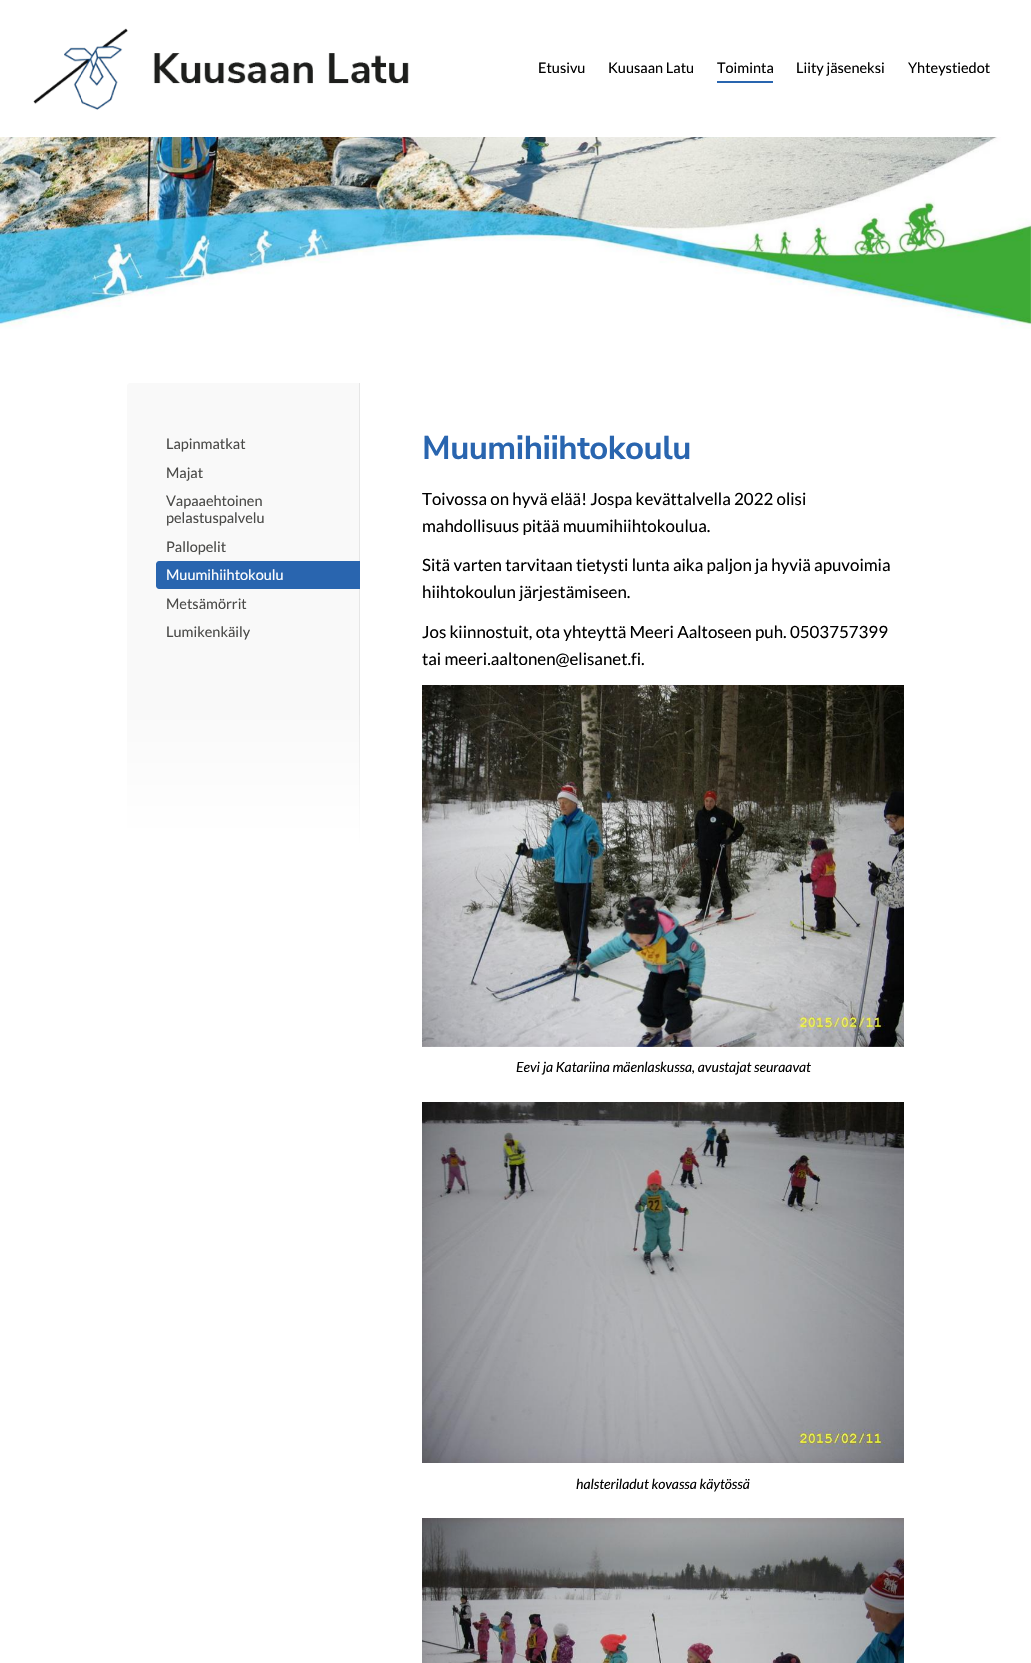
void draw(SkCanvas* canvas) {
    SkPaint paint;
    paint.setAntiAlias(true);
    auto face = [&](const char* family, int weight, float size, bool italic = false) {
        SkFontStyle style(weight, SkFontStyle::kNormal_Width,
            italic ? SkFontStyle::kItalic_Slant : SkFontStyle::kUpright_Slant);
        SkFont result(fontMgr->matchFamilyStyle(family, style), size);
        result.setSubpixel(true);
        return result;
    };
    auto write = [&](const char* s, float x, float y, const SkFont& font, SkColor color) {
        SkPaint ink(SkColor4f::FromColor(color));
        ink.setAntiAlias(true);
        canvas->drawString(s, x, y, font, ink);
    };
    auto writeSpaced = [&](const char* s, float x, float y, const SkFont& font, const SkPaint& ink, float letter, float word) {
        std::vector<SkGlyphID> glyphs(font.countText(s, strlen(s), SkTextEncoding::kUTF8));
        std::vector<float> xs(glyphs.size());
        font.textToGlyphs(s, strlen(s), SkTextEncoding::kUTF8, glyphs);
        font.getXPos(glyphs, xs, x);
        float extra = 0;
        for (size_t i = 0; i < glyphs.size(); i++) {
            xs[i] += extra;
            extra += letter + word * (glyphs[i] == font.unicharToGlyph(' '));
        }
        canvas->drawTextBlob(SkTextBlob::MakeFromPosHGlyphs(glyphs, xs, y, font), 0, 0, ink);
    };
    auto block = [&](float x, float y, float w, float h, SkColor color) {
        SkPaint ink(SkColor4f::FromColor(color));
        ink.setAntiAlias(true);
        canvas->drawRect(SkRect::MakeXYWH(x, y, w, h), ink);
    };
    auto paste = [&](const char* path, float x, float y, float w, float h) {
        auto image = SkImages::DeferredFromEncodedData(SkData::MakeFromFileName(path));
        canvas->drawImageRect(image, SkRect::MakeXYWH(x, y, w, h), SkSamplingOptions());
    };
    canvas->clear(SK_ColorWHITE);
    paste("pic1.png", 0, 137, 1031, 206);
    paste("pic2.png", 33, 28, 376, 82);
    auto kFont1 = face("Lato", 400, 14.5f);
    write("Etusivu", 538, 73, kFont1, SK_ColorBLACK);
    write("Kuusaan Latu", 608, 73, kFont1, SK_ColorBLACK);
    write("Toiminta", 717, 73, kFont1, SK_ColorBLACK);
    block(717, 81, 56, 2, SkColorSetRGB(41, 101, 175));
    write("Liity jäseneksi", 796, 73, kFont1, SK_ColorBLACK);
    write("Yhteystiedot", 908, 73, kFont1, SK_ColorBLACK);
    paint.setColor(SkColorSetRGB(249, 249, 249));
    canvas->drawPath(SkPathBuilder().moveTo(130, 383).lineTo(360, 383).lineTo(360, 849).lineTo(127, 849).lineTo(127, 386).cubicTo(127, 384.5f, 128.5f, 383, 130, 383).close().detach(), paint);
    block(359, 383, 1, 466, SkColorSetRGB(230, 230, 230));
    write("Lapinmatkat", 166, 449, kFont1, SkColorSetRGB(75, 75, 73));
    write("Majat", 166, 478, kFont1, SkColorSetRGB(75, 75, 73));
    write("Vapaaehtoinen", 166, 506, kFont1, SkColorSetRGB(75, 75, 73));
    write("pelastuspalvelu", 166, 523, kFont1, SkColorSetRGB(75, 75, 73));
    write("Pallopelit", 166, 552, kFont1, SkColorSetRGB(75, 75, 73));
    paint.setColor(SkColorSetRGB(41, 101, 175));
    canvas->drawPath(SkPathBuilder().moveTo(159, 561).lineTo(360, 561).lineTo(360, 589).lineTo(159, 589).cubicTo(157.5f, 589, 156, 587.5f, 156, 586).lineTo(156, 564).cubicTo(156, 562.5f, 157.5f, 561, 159, 561).close().detach(), paint);
    write("Muumihiihtokoulu", 166, 580, kFont1, SK_ColorWHITE);
    write("Metsämörrit", 166, 609, kFont1, SkColorSetRGB(75, 75, 73));
    write("Lumikenkäily", 166, 637, kFont1, SkColorSetRGB(75, 75, 73));
    {
        const SkColor colors[] = {SkColorSetARGB(0, 255, 255, 255), SK_ColorWHITE};
        const float stops[] = {0, 1};
        const SkPoint ends[] = {{244, 699}, {244, 849}};
        paint.setShader(SkGradientShader::MakeLinear(ends, colors, stops, 2, SkTileMode::kClamp));
        paint.setAlpha(255);
    }
    canvas->drawRect(SkRect::MakeXYWH(127, 715, 233, 134), paint);
    auto kFont2 = face("Nunito Sans", 200, 33);
    paint.setShader(nullptr);
    paint.setColor(SkColorSetRGB(41, 101, 175));
    writeSpaced("Muumihiihtokoulu", 422, 459, kFont2, paint, -0.5f, 0);
    auto kFont3 = face("Lato", 400, 16.9f);
    write("Toivossa on hyvä elää! Jospa kevättalvella 2022 olisi", 422, 505, kFont3, SK_ColorBLACK);
    write("mahdollisuus pitää muumihiihtokoulua.", 422, 532, kFont3, SK_ColorBLACK);
    write("Sitä varten tarvitaan tietysti lunta aika paljon ja hyviä apuvoimia", 422, 571, kFont3, SK_ColorBLACK);
    write("hiihtokoulun järjestämiseen.", 422, 598, kFont3, SK_ColorBLACK);
    write("Jos kiinnostuit, ota yhteyttä Meeri Aaltoseen puh. 0503757399", 422, 638, kFont3, SK_ColorBLACK);
    write("tai meeri.aaltonen@elisanet.fi.", 422, 665, kFont3, SK_ColorBLACK);
    paste("pic3.png", 422, 685, 482, 362);
    auto kFont4 = face("Lato", 400, 14, true);
    write("Eevi ja Katariina mäenlaskussa, avustajat seuraavat", 516, 1072, kFont4, SK_ColorBLACK);
    paste("pic4.png", 422, 1102, 482, 361);
    write("halsteriladut kovassa käytössä", 576, 1489, kFont4, SK_ColorBLACK);
    paste("pic5.png", 422, 1518, 482, 145);
}
